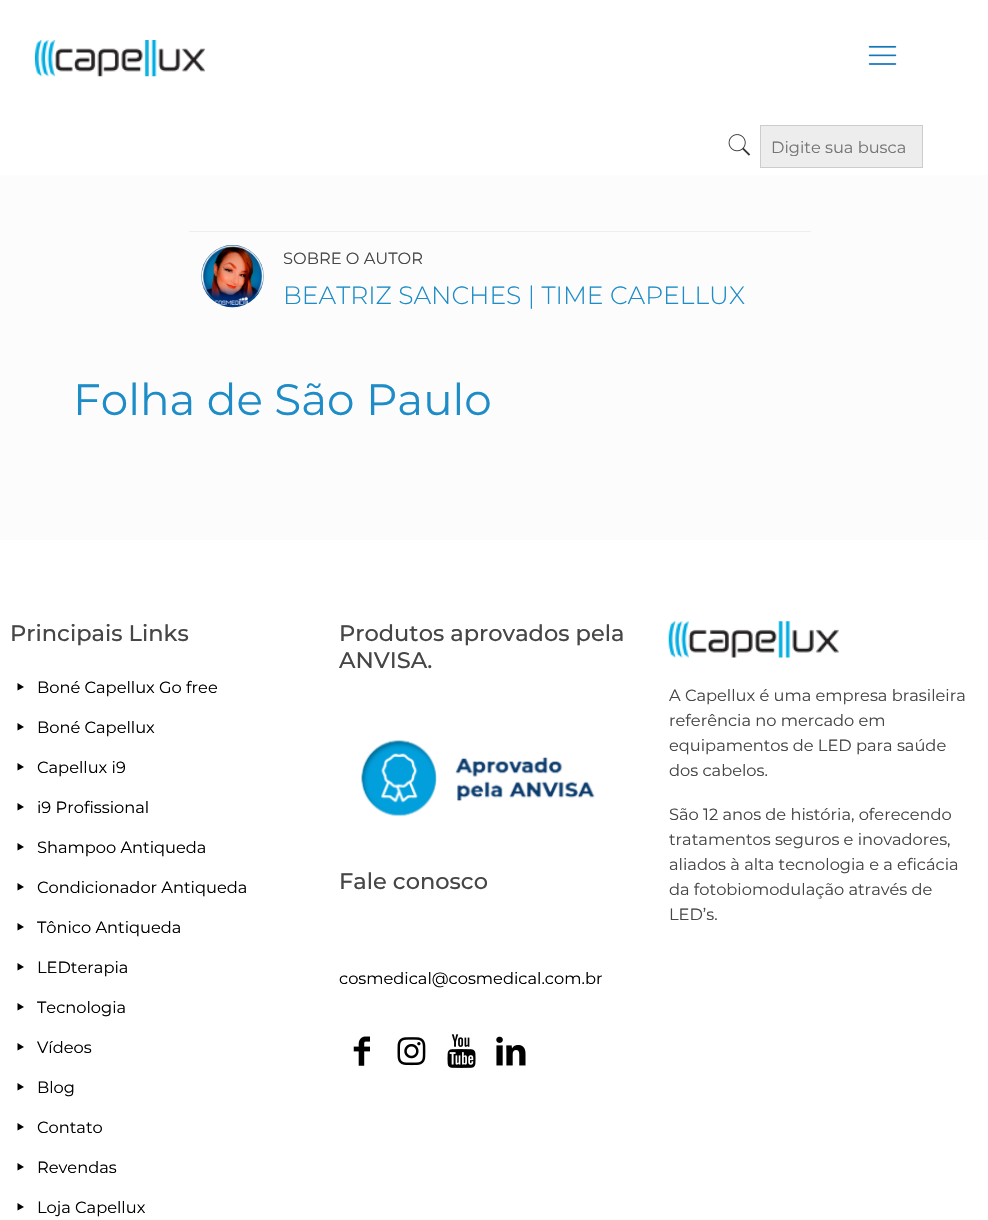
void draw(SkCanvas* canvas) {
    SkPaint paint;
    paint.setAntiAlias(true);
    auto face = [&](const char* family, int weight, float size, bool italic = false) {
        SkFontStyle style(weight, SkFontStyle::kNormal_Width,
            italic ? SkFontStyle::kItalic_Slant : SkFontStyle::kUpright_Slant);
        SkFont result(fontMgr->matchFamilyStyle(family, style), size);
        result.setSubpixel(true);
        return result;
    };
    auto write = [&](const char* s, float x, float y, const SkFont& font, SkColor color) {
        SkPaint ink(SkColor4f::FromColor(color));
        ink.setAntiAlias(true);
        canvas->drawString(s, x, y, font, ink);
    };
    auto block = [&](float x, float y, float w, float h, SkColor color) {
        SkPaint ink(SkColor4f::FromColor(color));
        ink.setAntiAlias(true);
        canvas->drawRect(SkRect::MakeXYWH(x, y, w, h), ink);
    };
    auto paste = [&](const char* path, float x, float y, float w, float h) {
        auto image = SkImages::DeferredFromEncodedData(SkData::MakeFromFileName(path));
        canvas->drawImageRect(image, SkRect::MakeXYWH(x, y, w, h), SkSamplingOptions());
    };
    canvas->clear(SkColorSetRGB(252, 252, 252));
    block(0, 0, 988, 175, SK_ColorWHITE);
    paste("pic1.png", 35, 40, 170, 37);
    paste("pic2.png", 868, 45, 29, 20);
    paste("pic3.png", 728, 134, 23, 22);
    paint.setColor(SkColorSetRGB(237, 237, 237));
    canvas->drawRect(SkRect::MakeXYWH(760.5f, 125.5f, 162, 42), paint);
    paint.setStyle(SkPaint::kStroke_Style);
    paint.setStrokeWidth(1);
    paint.setColor(SkColorSetRGB(204, 204, 204));
    canvas->drawRect(SkRect::MakeXYWH(760.5f, 125.5f, 162, 42), paint);
    canvas->save();
    canvas->clipRect(SkRect::MakeXYWH(771, 136, 140, 20));
    auto kFont1 = face("Montserrat", 400, 16.25f);
    write("Digite sua busca", 771, 153, kFont1, SkColorSetRGB(117, 117, 117));
    canvas->restore();
    block(189, 231, 622, 1, SkColorSetRGB(238, 238, 238));
    paste("pic4.png", 201, 245, 63, 63);
    write("SOBRE O AUTOR", 283, 264, kFont1, SkColorSetRGB(70, 70, 70));
    auto kFont2 = face("Montserrat", 300, 25);
    write("BEATRIZ SANCHES | TIME CAPELLUX", 283, 304, kFont2, SkColorSetRGB(29, 140, 199));
    auto kFont3 = face("Montserrat", 400, 43.75f);
    write("Folha de São Paulo", 73, 415, kFont3, SkColorSetRGB(29, 140, 199));
    block(0, 540, 988, 680, SK_ColorWHITE);
    auto kFont4 = face("Montserrat", 500, 22.5f);
    write("Principais Links", 10, 641, kFont4, SkColorSetRGB(70, 70, 70));
    paint.setStyle(SkPaint::kFill_Style);
    paint.setColor(SK_ColorBLACK);
    canvas->drawPath(SkPathBuilder().moveTo(17.5f, 683).lineTo(24, 687).lineTo(17.5f, 690.5f).close().detach(), paint);
    write("Boné Capellux Go free", 37, 693, kFont1, SK_ColorBLACK);
    canvas->drawPath(SkPathBuilder().moveTo(17.5f, 723).lineTo(24, 727).lineTo(17.5f, 730.5f).close().detach(), paint);
    write("Boné Capellux", 37, 733, kFont1, SK_ColorBLACK);
    canvas->drawPath(SkPathBuilder().moveTo(17.5f, 763).lineTo(24, 767).lineTo(17.5f, 770.5f).close().detach(), paint);
    write("Capellux i9", 37, 773, kFont1, SK_ColorBLACK);
    canvas->drawPath(SkPathBuilder().moveTo(17.5f, 803).lineTo(24, 807).lineTo(17.5f, 810.5f).close().detach(), paint);
    write("i9 Profissional", 37, 813, kFont1, SK_ColorBLACK);
    canvas->drawPath(SkPathBuilder().moveTo(17.5f, 843).lineTo(24, 847).lineTo(17.5f, 850.5f).close().detach(), paint);
    write("Shampoo Antiqueda", 37, 853, kFont1, SK_ColorBLACK);
    canvas->drawPath(SkPathBuilder().moveTo(17.5f, 883).lineTo(24, 887).lineTo(17.5f, 890.5f).close().detach(), paint);
    write("Condicionador Antiqueda", 37, 893, kFont1, SK_ColorBLACK);
    canvas->drawPath(SkPathBuilder().moveTo(17.5f, 923).lineTo(24, 927).lineTo(17.5f, 930.5f).close().detach(), paint);
    write("Tônico Antiqueda", 37, 933, kFont1, SK_ColorBLACK);
    canvas->drawPath(SkPathBuilder().moveTo(17.5f, 963).lineTo(24, 967).lineTo(17.5f, 970.5f).close().detach(), paint);
    write("LEDterapia", 37, 973, kFont1, SK_ColorBLACK);
    canvas->drawPath(SkPathBuilder().moveTo(17.5f, 1003).lineTo(24, 1007).lineTo(17.5f, 1010.5f).close().detach(), paint);
    write("Tecnologia", 37, 1013, kFont1, SK_ColorBLACK);
    canvas->drawPath(SkPathBuilder().moveTo(17.5f, 1043).lineTo(24, 1047).lineTo(17.5f, 1050.5f).close().detach(), paint);
    write("Vídeos", 37, 1053, kFont1, SK_ColorBLACK);
    canvas->drawPath(SkPathBuilder().moveTo(17.5f, 1083).lineTo(24, 1087).lineTo(17.5f, 1090.5f).close().detach(), paint);
    write("Blog", 37, 1093, kFont1, SK_ColorBLACK);
    canvas->drawPath(SkPathBuilder().moveTo(17.5f, 1123).lineTo(24, 1127).lineTo(17.5f, 1130.5f).close().detach(), paint);
    write("Contato", 37, 1133, kFont1, SK_ColorBLACK);
    canvas->drawPath(SkPathBuilder().moveTo(17.5f, 1163).lineTo(24, 1167).lineTo(17.5f, 1170.5f).close().detach(), paint);
    write("Revendas", 37, 1173, kFont1, SK_ColorBLACK);
    canvas->drawPath(SkPathBuilder().moveTo(17.5f, 1203).lineTo(24, 1207).lineTo(17.5f, 1210.5f).close().detach(), paint);
    write("Loja Capellux", 37, 1213, kFont1, SK_ColorBLACK);
    write("Produtos aprovados pela", 339, 641, kFont4, SkColorSetRGB(70, 70, 70));
    write("ANVISA.", 339, 668, kFont4, SkColorSetRGB(70, 70, 70));
    paste("pic5.png", 361, 740, 234, 77);
    write("Fale conosco", 339, 889, kFont4, SkColorSetRGB(70, 70, 70));
    write("cosmedical@cosmedical.com.br", 339, 984, kFont1, SK_ColorBLACK);
    paste("pic6.png", 353, 1036, 17, 30);
    paste("pic7.png", 397, 1037, 29, 29);
    paste("pic8.png", 447, 1034, 29, 34);
    paste("pic9.png", 496, 1036, 30, 30);
    paste("pic10.png", 668, 621, 171, 37);
    write("A Capellux é uma empresa brasileira", 669, 701, kFont1, SkColorSetRGB(70, 70, 70));
    write("referência no mercado em", 669, 726, kFont1, SkColorSetRGB(70, 70, 70));
    write("equipamentos de LED para saúde", 669, 751, kFont1, SkColorSetRGB(70, 70, 70));
    write("dos cabelos.", 669, 776, kFont1, SkColorSetRGB(70, 70, 70));
    write("São 12 anos de história, oferecendo", 669, 820, kFont1, SkColorSetRGB(70, 70, 70));
    write("tratamentos seguros e inovadores,", 669, 845, kFont1, SkColorSetRGB(70, 70, 70));
    write("aliados à alta tecnologia e a eficácia", 669, 870, kFont1, SkColorSetRGB(70, 70, 70));
    write("da fotobiomodulação através de", 669, 895, kFont1, SkColorSetRGB(70, 70, 70));
    write("LED’s.", 669, 920, kFont1, SkColorSetRGB(70, 70, 70));
}
